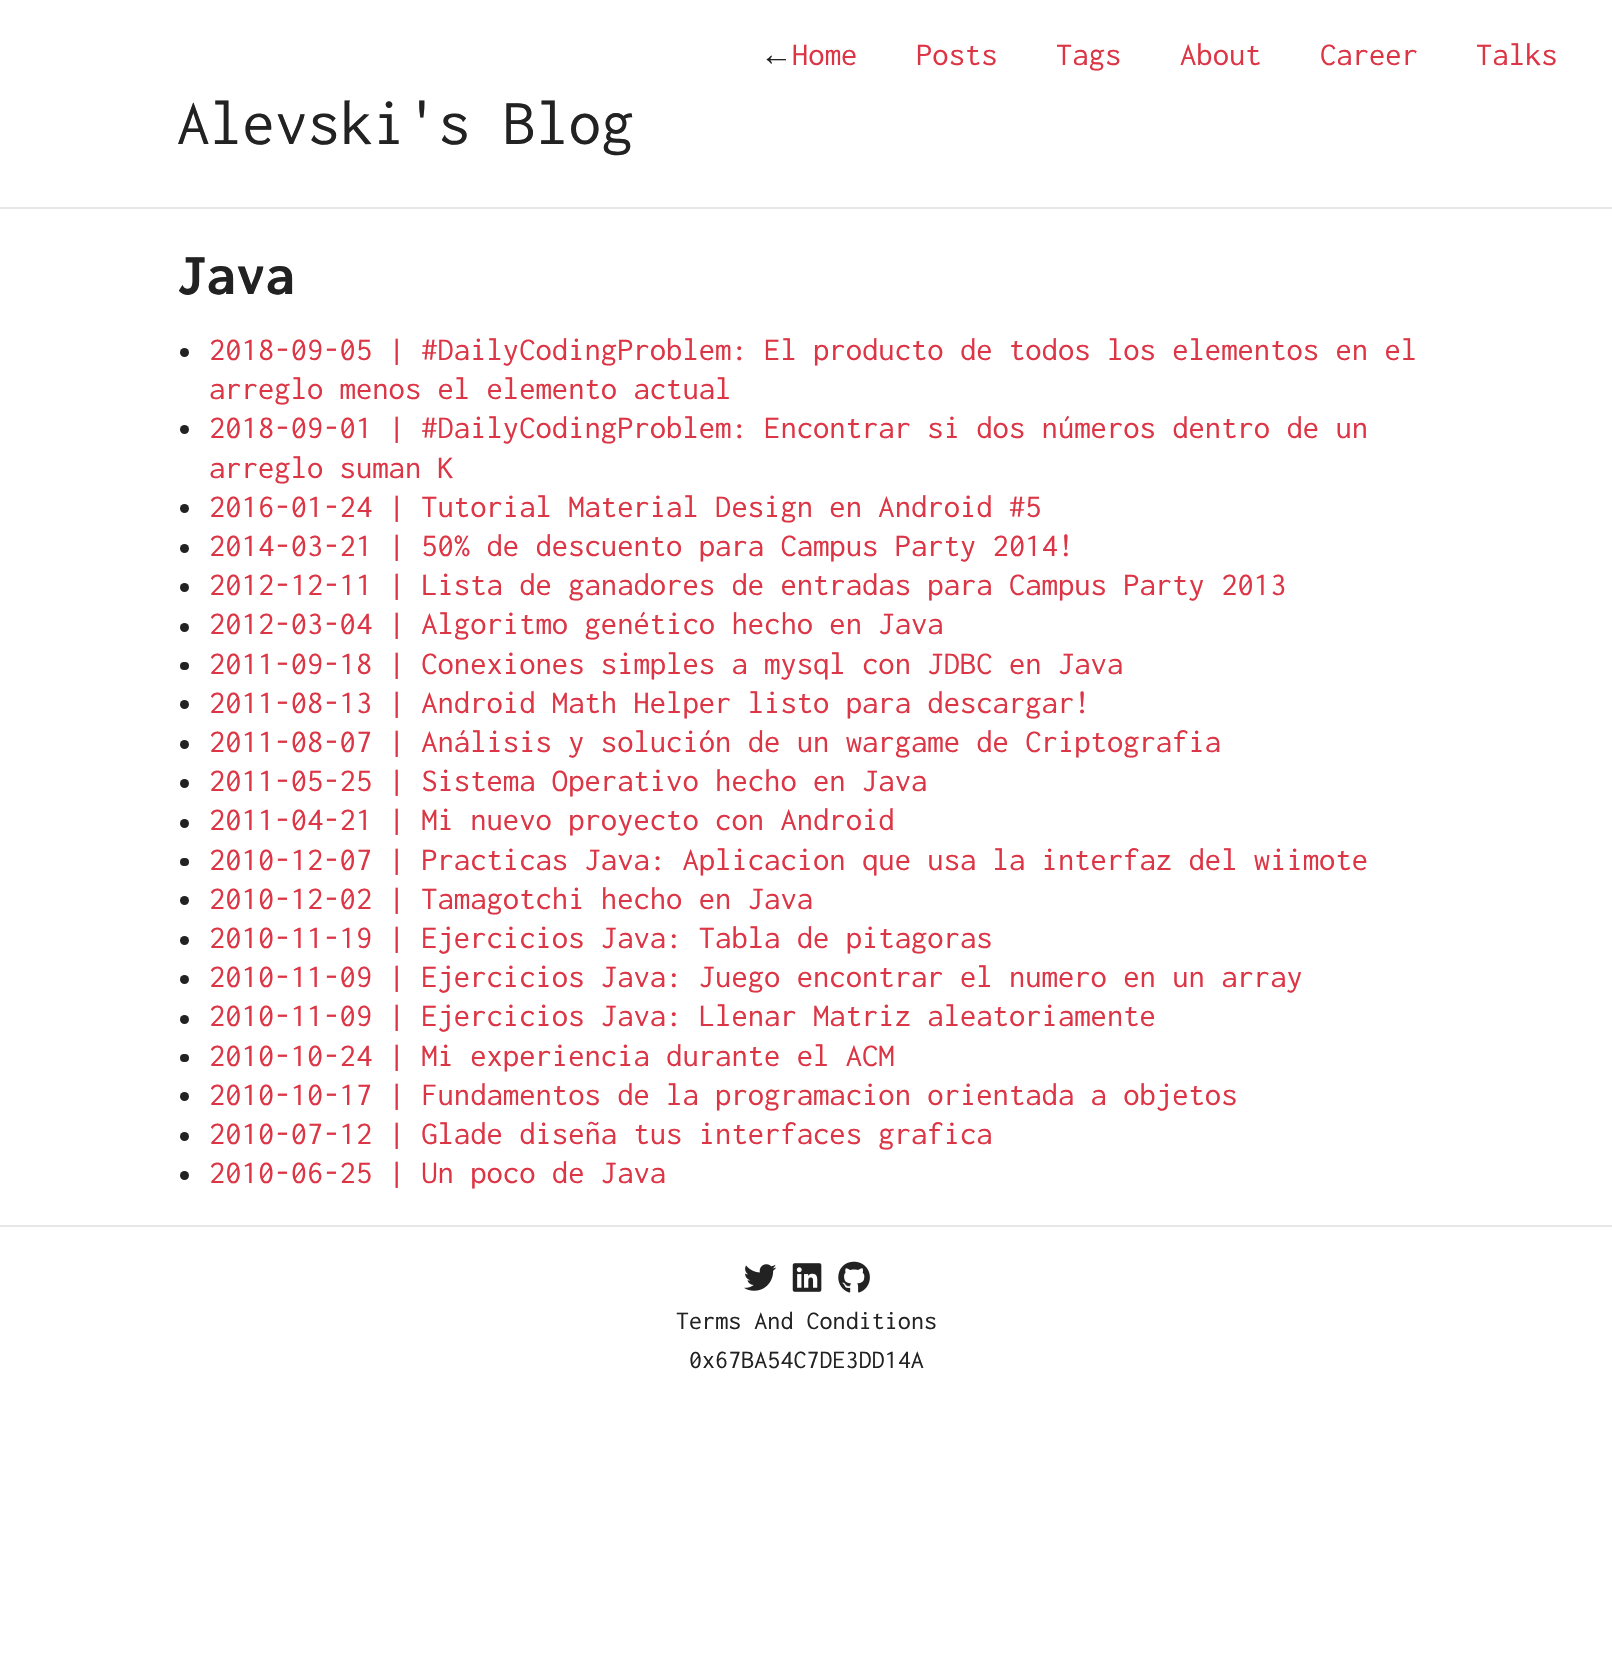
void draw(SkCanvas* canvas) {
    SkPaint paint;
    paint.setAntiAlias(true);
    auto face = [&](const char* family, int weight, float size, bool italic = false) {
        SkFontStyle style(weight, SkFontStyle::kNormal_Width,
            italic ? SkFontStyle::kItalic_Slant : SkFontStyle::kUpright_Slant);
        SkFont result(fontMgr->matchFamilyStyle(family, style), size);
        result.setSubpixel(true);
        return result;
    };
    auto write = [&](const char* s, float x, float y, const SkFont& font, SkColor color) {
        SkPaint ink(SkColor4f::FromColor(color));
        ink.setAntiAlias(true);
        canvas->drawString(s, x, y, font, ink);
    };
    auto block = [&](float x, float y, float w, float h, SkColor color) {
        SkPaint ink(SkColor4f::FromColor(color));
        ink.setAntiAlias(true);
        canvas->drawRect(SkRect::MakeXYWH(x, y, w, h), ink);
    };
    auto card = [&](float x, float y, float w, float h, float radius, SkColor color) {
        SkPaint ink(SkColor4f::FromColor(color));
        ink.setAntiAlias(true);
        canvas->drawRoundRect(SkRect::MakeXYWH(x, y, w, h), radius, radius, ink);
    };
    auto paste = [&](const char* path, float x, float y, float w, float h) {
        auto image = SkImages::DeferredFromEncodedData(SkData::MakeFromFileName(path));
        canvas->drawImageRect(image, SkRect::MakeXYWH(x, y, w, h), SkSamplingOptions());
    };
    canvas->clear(SK_ColorWHITE);
    auto kFont1 = face("Liberation Serif", 400, 32.65f);
    write("←", 760, 65, kFont1, SkColorSetRGB(34, 34, 34));
    auto kFont2 = face("Inconsolata", 400, 32.65f);
    write("Home", 792, 65, kFont2, SkColorSetRGB(220, 53, 69));
    write("Posts", 916, 65, kFont2, SkColorSetRGB(220, 53, 69));
    write("Tags", 1056, 65, kFont2, SkColorSetRGB(220, 53, 69));
    write("About", 1180, 65, kFont2, SkColorSetRGB(220, 53, 69));
    write("Career", 1320, 65, kFont2, SkColorSetRGB(220, 53, 69));
    write("Talks", 1476, 65, kFont2, SkColorSetRGB(220, 53, 69));
    auto kFont3 = face("Inconsolata", 400, 65.25f);
    write("Alevski's Blog", 177, 144, kFont3, SkColorSetRGB(34, 34, 34));
    block(0, 207, 1612, 2, SkColorSetRGB(230, 230, 230));
    auto kFont4 = face("Inconsolata", 700, 59);
    write("Java", 177, 294, kFont4, SkColorSetRGB(34, 34, 34));
    paint.setColor(SkColorSetRGB(34, 34, 34));
    canvas->drawCircle(184.5f, 352.5f, 4.5f, paint);
    write("2018-09-05 | #DailyCodingProblem: El producto de todos los elementos en el", 209, 360, kFont2, SkColorSetRGB(220, 53, 69));
    write("arreglo menos el elemento actual", 209, 399, kFont2, SkColorSetRGB(220, 53, 69));
    canvas->drawCircle(184.5f, 429.5f, 4.5f, paint);
    write("2018-09-01 | #DailyCodingProblem: Encontrar si dos números dentro de un", 209, 438, kFont2, SkColorSetRGB(220, 53, 69));
    write("arreglo suman K", 209, 478, kFont2, SkColorSetRGB(220, 53, 69));
    canvas->drawCircle(184.5f, 508.5f, 4.5f, paint);
    write("2016-01-24 | Tutorial Material Design en Android #5", 209, 517, kFont2, SkColorSetRGB(220, 53, 69));
    canvas->drawCircle(184.5f, 548.5f, 4.5f, paint);
    write("2014-03-21 | 50% de descuento para Campus Party 2014!", 209, 556, kFont2, SkColorSetRGB(220, 53, 69));
    canvas->drawCircle(184.5f, 587.5f, 4.5f, paint);
    write("2012-12-11 | Lista de ganadores de entradas para Campus Party 2013", 209, 595, kFont2, SkColorSetRGB(220, 53, 69));
    canvas->drawCircle(184.5f, 627.5f, 4.5f, paint);
    write("2012-03-04 | Algoritmo genético hecho en Java", 209, 634, kFont2, SkColorSetRGB(220, 53, 69));
    card(180, 662, 9, 8, 4, SkColorSetRGB(34, 34, 34));
    write("2011-09-18 | Conexiones simples a mysql con JDBC en Java", 209, 674, kFont2, SkColorSetRGB(220, 53, 69));
    canvas->drawCircle(184.5f, 704.5f, 4.5f, paint);
    write("2011-08-13 | Android Math Helper listo para descargar!", 209, 713, kFont2, SkColorSetRGB(220, 53, 69));
    canvas->drawCircle(184.5f, 744.5f, 4.5f, paint);
    write("2011-08-07 | Análisis y solución de un wargame de Criptografia", 209, 752, kFont2, SkColorSetRGB(220, 53, 69));
    canvas->drawCircle(184.5f, 783.5f, 4.5f, paint);
    write("2011-05-25 | Sistema Operativo hecho en Java", 209, 791, kFont2, SkColorSetRGB(220, 53, 69));
    canvas->drawCircle(184.5f, 823.5f, 4.5f, paint);
    write("2011-04-21 | Mi nuevo proyecto con Android", 209, 830, kFont2, SkColorSetRGB(220, 53, 69));
    card(180, 858, 9, 8, 4, SkColorSetRGB(34, 34, 34));
    write("2010-12-07 | Practicas Java: Aplicacion que usa la interfaz del wiimote", 209, 870, kFont2, SkColorSetRGB(220, 53, 69));
    canvas->drawCircle(184.5f, 900.5f, 4.5f, paint);
    write("2010-12-02 | Tamagotchi hecho en Java", 209, 909, kFont2, SkColorSetRGB(220, 53, 69));
    canvas->drawCircle(184.5f, 940.5f, 4.5f, paint);
    write("2010-11-19 | Ejercicios Java: Tabla de pitagoras", 209, 948, kFont2, SkColorSetRGB(220, 53, 69));
    canvas->drawCircle(184.5f, 979.5f, 4.5f, paint);
    write("2010-11-09 | Ejercicios Java: Juego encontrar el numero en un array", 209, 987, kFont2, SkColorSetRGB(220, 53, 69));
    canvas->drawCircle(184.5f, 1019.5f, 4.5f, paint);
    write("2010-11-09 | Ejercicios Java: Llenar Matriz aleatoriamente", 209, 1026, kFont2, SkColorSetRGB(220, 53, 69));
    card(180, 1054, 9, 8, 4, SkColorSetRGB(34, 34, 34));
    write("2010-10-24 | Mi experiencia durante el ACM", 209, 1066, kFont2, SkColorSetRGB(220, 53, 69));
    canvas->drawCircle(184.5f, 1096.5f, 4.5f, paint);
    write("2010-10-17 | Fundamentos de la programacion orientada a objetos", 209, 1105, kFont2, SkColorSetRGB(220, 53, 69));
    canvas->drawCircle(184.5f, 1136.5f, 4.5f, paint);
    write("2010-07-12 | Glade diseña tus interfaces grafica", 209, 1144, kFont2, SkColorSetRGB(220, 53, 69));
    canvas->drawCircle(184.5f, 1175.5f, 4.5f, paint);
    write("2010-06-25 | Un poco de Java", 209, 1183, kFont2, SkColorSetRGB(220, 53, 69));
    block(0, 1225, 1612, 2, SkColorSetRGB(230, 230, 230));
    paste("pic1.png", 744, 1264, 33, 27);
    paste("pic2.png", 792, 1263, 30, 29);
    paste("pic3.png", 838, 1261, 32, 32);
    auto kFont5 = face("Inconsolata", 400, 26.1f);
    write("Terms And Conditions", 676, 1329, kFont5, SkColorSetRGB(34, 34, 34));
    write("0x67BA54C7DE3DD14A", 689, 1368, kFont5, SkColorSetRGB(34, 34, 34));
}
